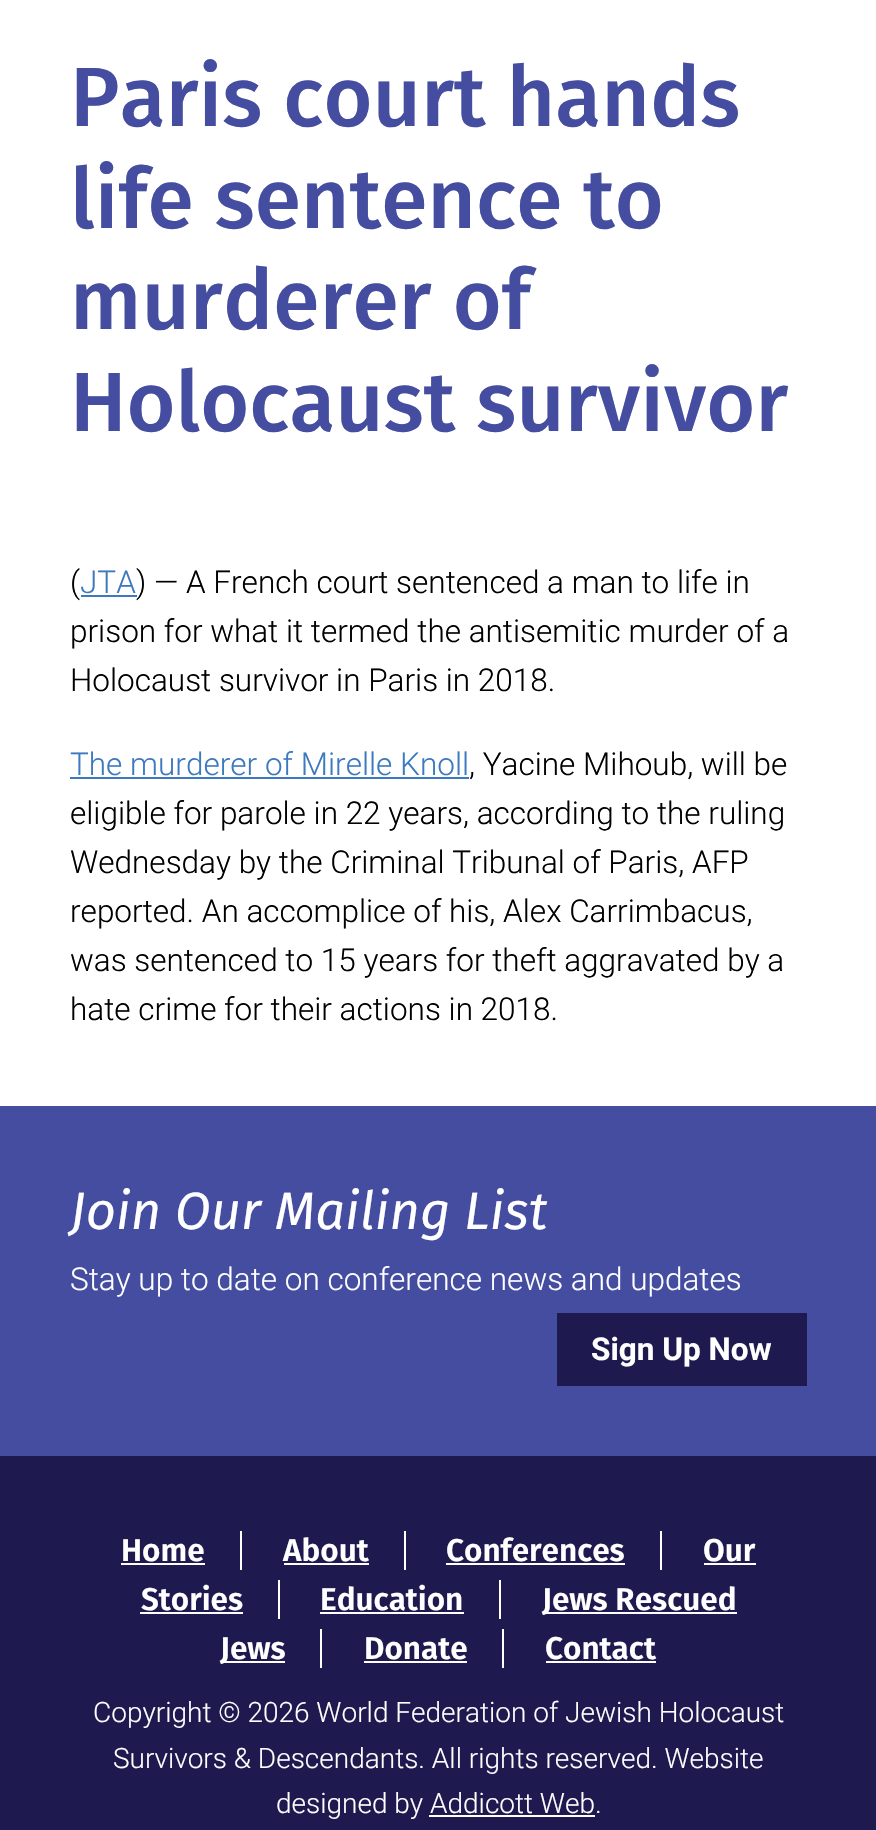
void draw(SkCanvas* canvas) {
    SkPaint paint;
    paint.setAntiAlias(true);
    auto face = [&](const char* family, int weight, float size, bool italic = false) {
        SkFontStyle style(weight, SkFontStyle::kNormal_Width,
            italic ? SkFontStyle::kItalic_Slant : SkFontStyle::kUpright_Slant);
        SkFont result(fontMgr->matchFamilyStyle(family, style), size);
        result.setSubpixel(true);
        return result;
    };
    auto write = [&](const char* s, float x, float y, const SkFont& font, SkColor color) {
        SkPaint ink(SkColor4f::FromColor(color));
        ink.setAntiAlias(true);
        canvas->drawString(s, x, y, font, ink);
    };
    auto block = [&](float x, float y, float w, float h, SkColor color) {
        SkPaint ink(SkColor4f::FromColor(color));
        ink.setAntiAlias(true);
        canvas->drawRect(SkRect::MakeXYWH(x, y, w, h), ink);
    };
    canvas->clear(SkColorSetRGB(30, 25, 78));
    block(0, 0, 876, 1106, SK_ColorWHITE);
    auto kFont1 = face("Fira Sans", 500, 84);
    write("Paris court hands", 70, 126, kFont1, SkColorSetRGB(68, 77, 160));
    write("life sentence to", 70, 228, kFont1, SkColorSetRGB(68, 77, 160));
    write("murderer of", 70, 329, kFont1, SkColorSetRGB(68, 77, 160));
    write("Holocaust survivor", 70, 431, kFont1, SkColorSetRGB(68, 77, 160));
    auto kFont2 = face("Roboto", 300, 31.5f);
    write("(", 70, 593, kFont2, SK_ColorBLACK);
    write("JTA", 80, 593, kFont2, SkColorSetRGB(61, 121, 191));
    block(81, 595, 56, 2, SkColorSetRGB(61, 121, 191));
    write(") — A French court sentenced a man to life in", 136, 593, kFont2, SK_ColorBLACK);
    write("prison for what it termed the antisemitic murder of a", 70, 642, kFont2, SK_ColorBLACK);
    write("Holocaust survivor in Paris in 2018.", 70, 691, kFont2, SK_ColorBLACK);
    write("The murderer of Mirelle Knoll", 70, 775, kFont2, SkColorSetRGB(61, 121, 191));
    block(70, 777, 399, 2, SkColorSetRGB(61, 121, 191));
    write(", Yacine Mihoub, will be", 469, 775, kFont2, SK_ColorBLACK);
    write("eligible for parole in 22 years, according to the ruling", 70, 824, kFont2, SK_ColorBLACK);
    write("Wednesday by the Criminal Tribunal of Paris, AFP", 70, 873, kFont2, SK_ColorBLACK);
    write("reported. An accomplice of his, Alex Carrimbacus,", 70, 922, kFont2, SK_ColorBLACK);
    write("was sentenced to 15 years for theft aggravated by a", 70, 971, kFont2, SK_ColorBLACK);
    write("hate crime for their actions in 2018.", 70, 1020, kFont2, SK_ColorBLACK);
    block(0, 1106, 876, 350, SkColorSetRGB(68, 77, 160));
    auto kFont3 = face("Fira Sans", 400, 52.5f, true);
    write("Join Our Mailing List", 70, 1229, kFont3, SK_ColorWHITE);
    write("Stay up to date on conference news and updates", 70, 1290, kFont2, SK_ColorWHITE);
    block(557, 1313, 250, 73, SkColorSetRGB(30, 25, 78));
    auto kFont4 = face("Roboto", 700, 31.5f);
    write("Sign Up Now", 591, 1360, kFont4, SK_ColorWHITE);
    auto kFont5 = face("Fira Sans", 600, 31.5f);
    write("Home", 121, 1561, kFont5, SK_ColorWHITE);
    block(240, 1531, 2, 39, SK_ColorWHITE);
    block(121, 1563, 84, 2, SK_ColorWHITE);
    write("About", 283, 1561, kFont5, SK_ColorWHITE);
    block(404, 1531, 2, 39, SK_ColorWHITE);
    block(284, 1563, 85, 2, SK_ColorWHITE);
    write("Conferences", 446, 1561, kFont5, SK_ColorWHITE);
    block(660, 1531, 2, 39, SK_ColorWHITE);
    block(446, 1563, 179, 2, SK_ColorWHITE);
    write("Our", 703, 1561, kFont5, SK_ColorWHITE);
    block(704, 1563, 52, 2, SK_ColorWHITE);
    write("Stories", 141, 1610, kFont5, SK_ColorWHITE);
    block(278, 1580, 2, 39, SK_ColorWHITE);
    block(140, 1612, 103, 2, SK_ColorWHITE);
    write("Education", 320, 1610, kFont5, SK_ColorWHITE);
    block(499, 1580, 2, 39, SK_ColorWHITE);
    block(320, 1612, 144, 2, SK_ColorWHITE);
    block(543, 1612, 194, 2, SK_ColorWHITE);
    write("Jews Rescued", 542, 1610, kFont5, SK_ColorWHITE);
    block(221, 1661, 64, 2, SK_ColorWHITE);
    write("Jews", 220, 1659, kFont5, SK_ColorWHITE);
    block(320, 1629, 2, 39, SK_ColorWHITE);
    write("Donate", 364, 1659, kFont5, SK_ColorWHITE);
    block(502, 1629, 2, 39, SK_ColorWHITE);
    block(364, 1661, 103, 2, SK_ColorWHITE);
    write("Contact", 545, 1659, kFont5, SK_ColorWHITE);
    block(546, 1661, 110, 2, SK_ColorWHITE);
    auto kFont6 = face("Roboto", 300, 28);
    write("Copyright © 2026 World Federation of Jewish Holocaust", 93, 1722, kFont6, SK_ColorWHITE);
    write("Survivors & Descendants. All rights reserved. Website", 113, 1768, kFont6, SK_ColorWHITE);
    write("designed by Addicott Web.", 276, 1813, kFont6, SK_ColorWHITE);
    block(429, 1815, 166, 2, SK_ColorWHITE);
}
